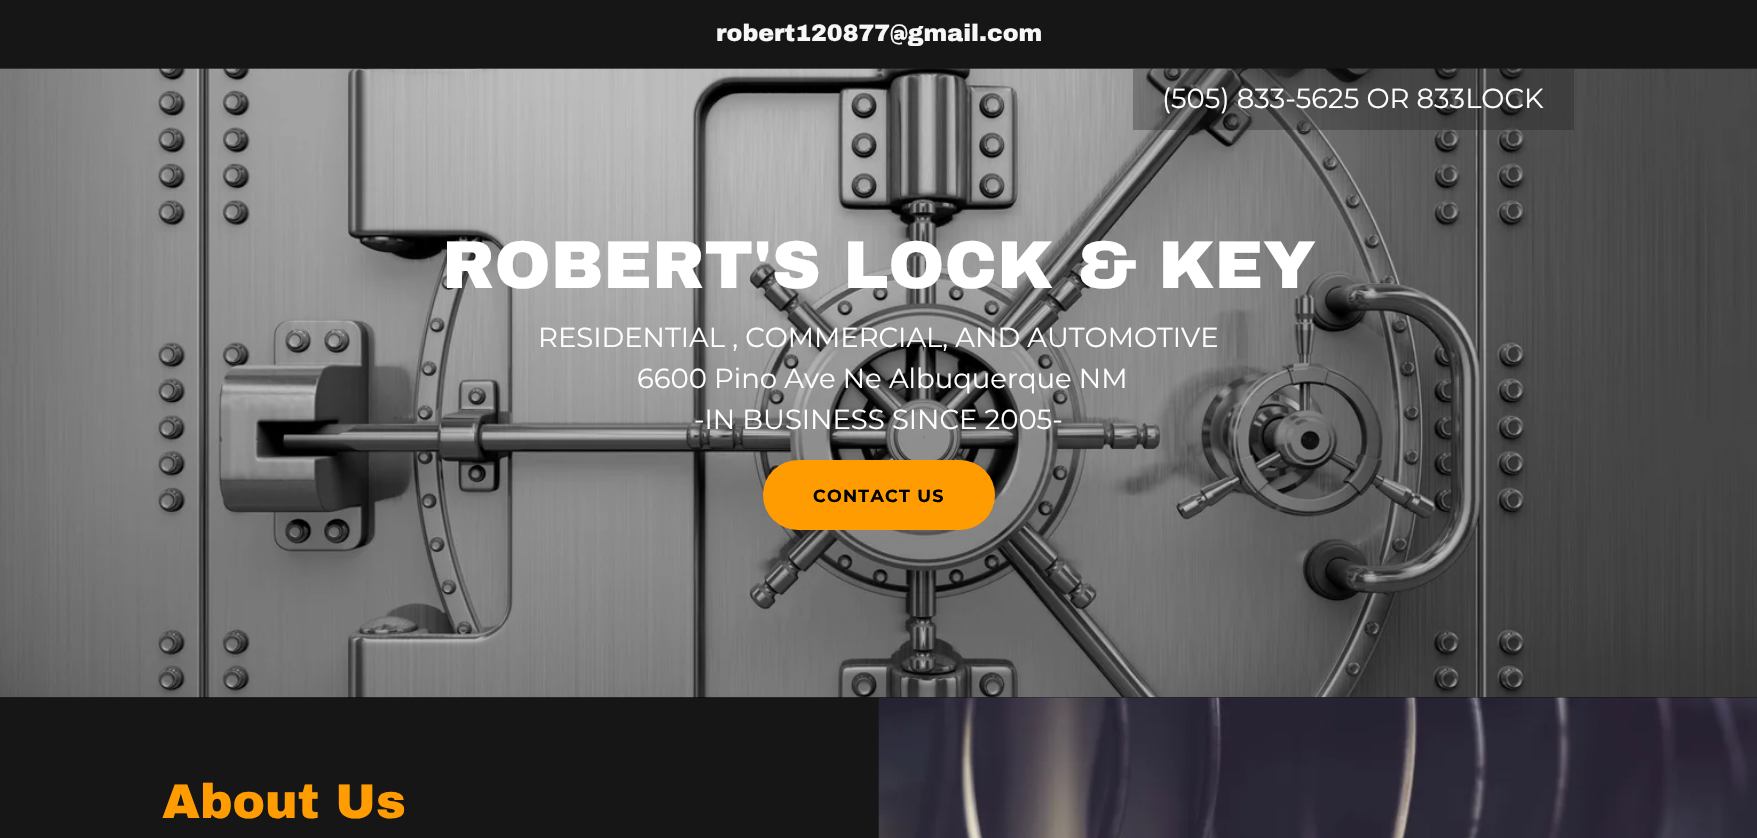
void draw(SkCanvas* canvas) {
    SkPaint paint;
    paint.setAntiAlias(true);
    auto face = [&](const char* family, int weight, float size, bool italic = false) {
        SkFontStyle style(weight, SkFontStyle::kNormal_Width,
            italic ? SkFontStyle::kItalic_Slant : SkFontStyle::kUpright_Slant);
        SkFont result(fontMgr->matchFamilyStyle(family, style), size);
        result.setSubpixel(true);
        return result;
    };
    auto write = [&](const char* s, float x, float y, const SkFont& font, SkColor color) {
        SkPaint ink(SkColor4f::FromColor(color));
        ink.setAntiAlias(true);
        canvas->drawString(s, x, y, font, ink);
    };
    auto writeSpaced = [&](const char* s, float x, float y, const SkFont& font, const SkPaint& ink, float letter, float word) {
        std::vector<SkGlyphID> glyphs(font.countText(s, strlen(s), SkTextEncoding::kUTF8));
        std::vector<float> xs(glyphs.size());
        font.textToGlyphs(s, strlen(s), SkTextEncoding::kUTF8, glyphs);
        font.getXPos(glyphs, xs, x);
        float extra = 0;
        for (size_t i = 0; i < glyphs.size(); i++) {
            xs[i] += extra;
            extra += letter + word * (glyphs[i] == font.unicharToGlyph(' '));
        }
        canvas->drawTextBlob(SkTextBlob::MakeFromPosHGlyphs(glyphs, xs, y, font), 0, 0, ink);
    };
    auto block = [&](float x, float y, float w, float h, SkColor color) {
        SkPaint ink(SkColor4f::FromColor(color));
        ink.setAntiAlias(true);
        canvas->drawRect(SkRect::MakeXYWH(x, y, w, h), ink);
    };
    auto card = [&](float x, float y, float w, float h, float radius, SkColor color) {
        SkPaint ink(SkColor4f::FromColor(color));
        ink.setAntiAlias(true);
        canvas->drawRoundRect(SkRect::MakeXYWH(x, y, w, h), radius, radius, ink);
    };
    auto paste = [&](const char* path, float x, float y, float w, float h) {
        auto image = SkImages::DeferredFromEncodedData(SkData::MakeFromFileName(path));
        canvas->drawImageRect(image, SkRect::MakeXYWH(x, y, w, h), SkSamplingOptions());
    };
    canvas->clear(SkColorSetRGB(22, 22, 22));
    auto kFont1 = face("Archivo Black", 900, 23.75f);
    write("robert120877@gmail.com", 716, 41, kFont1, SkColorSetRGB(247, 247, 247));
    block(0, 697, 1757, 1, SK_ColorBLACK);
    paste("pic1.png", 0, 68, 1757, 630);
    block(1133, 69, 441, 61, SkColorSetARGB(77, 22, 22, 22));
    auto kFont2 = face("Montserrat", 400, 27.5f);
    write("(505) 833-5625 OR 833LOCK", 1162, 108, kFont2, SK_ColorWHITE);
    auto kFont3 = face("Archivo Black", 900, 67.5f);
    write("ROBERT'S LOCK & KEY", 442, 288, kFont3, SK_ColorWHITE);
    write("RESIDENTIAL , COMMERCIAL, AND AUTOMOTIVE", 538, 347, kFont2, SK_ColorWHITE);
    write("6600 Pino Ave Ne Albuquerque NM", 637, 388, kFont2, SK_ColorWHITE);
    write("-IN BUSINESS SINCE 2005-", 694, 429, kFont2, SK_ColorWHITE);
    card(763, 460, 232, 70, 35, SkColorSetRGB(255, 156, 2));
    auto kFont4 = face("Montserrat", 700, 17.5f);
    paint.setColor(SK_ColorBLACK);
    writeSpaced("CONTACT US", 813, 502, kFont4, paint, 1.25f, 0);
    auto kFont5 = face("Archivo Black", 900, 48.75f);
    write("About Us", 162, 818, kFont5, SkColorSetRGB(255, 156, 2));
    paste("pic2.png", 878, 697, 879, 141);
}
